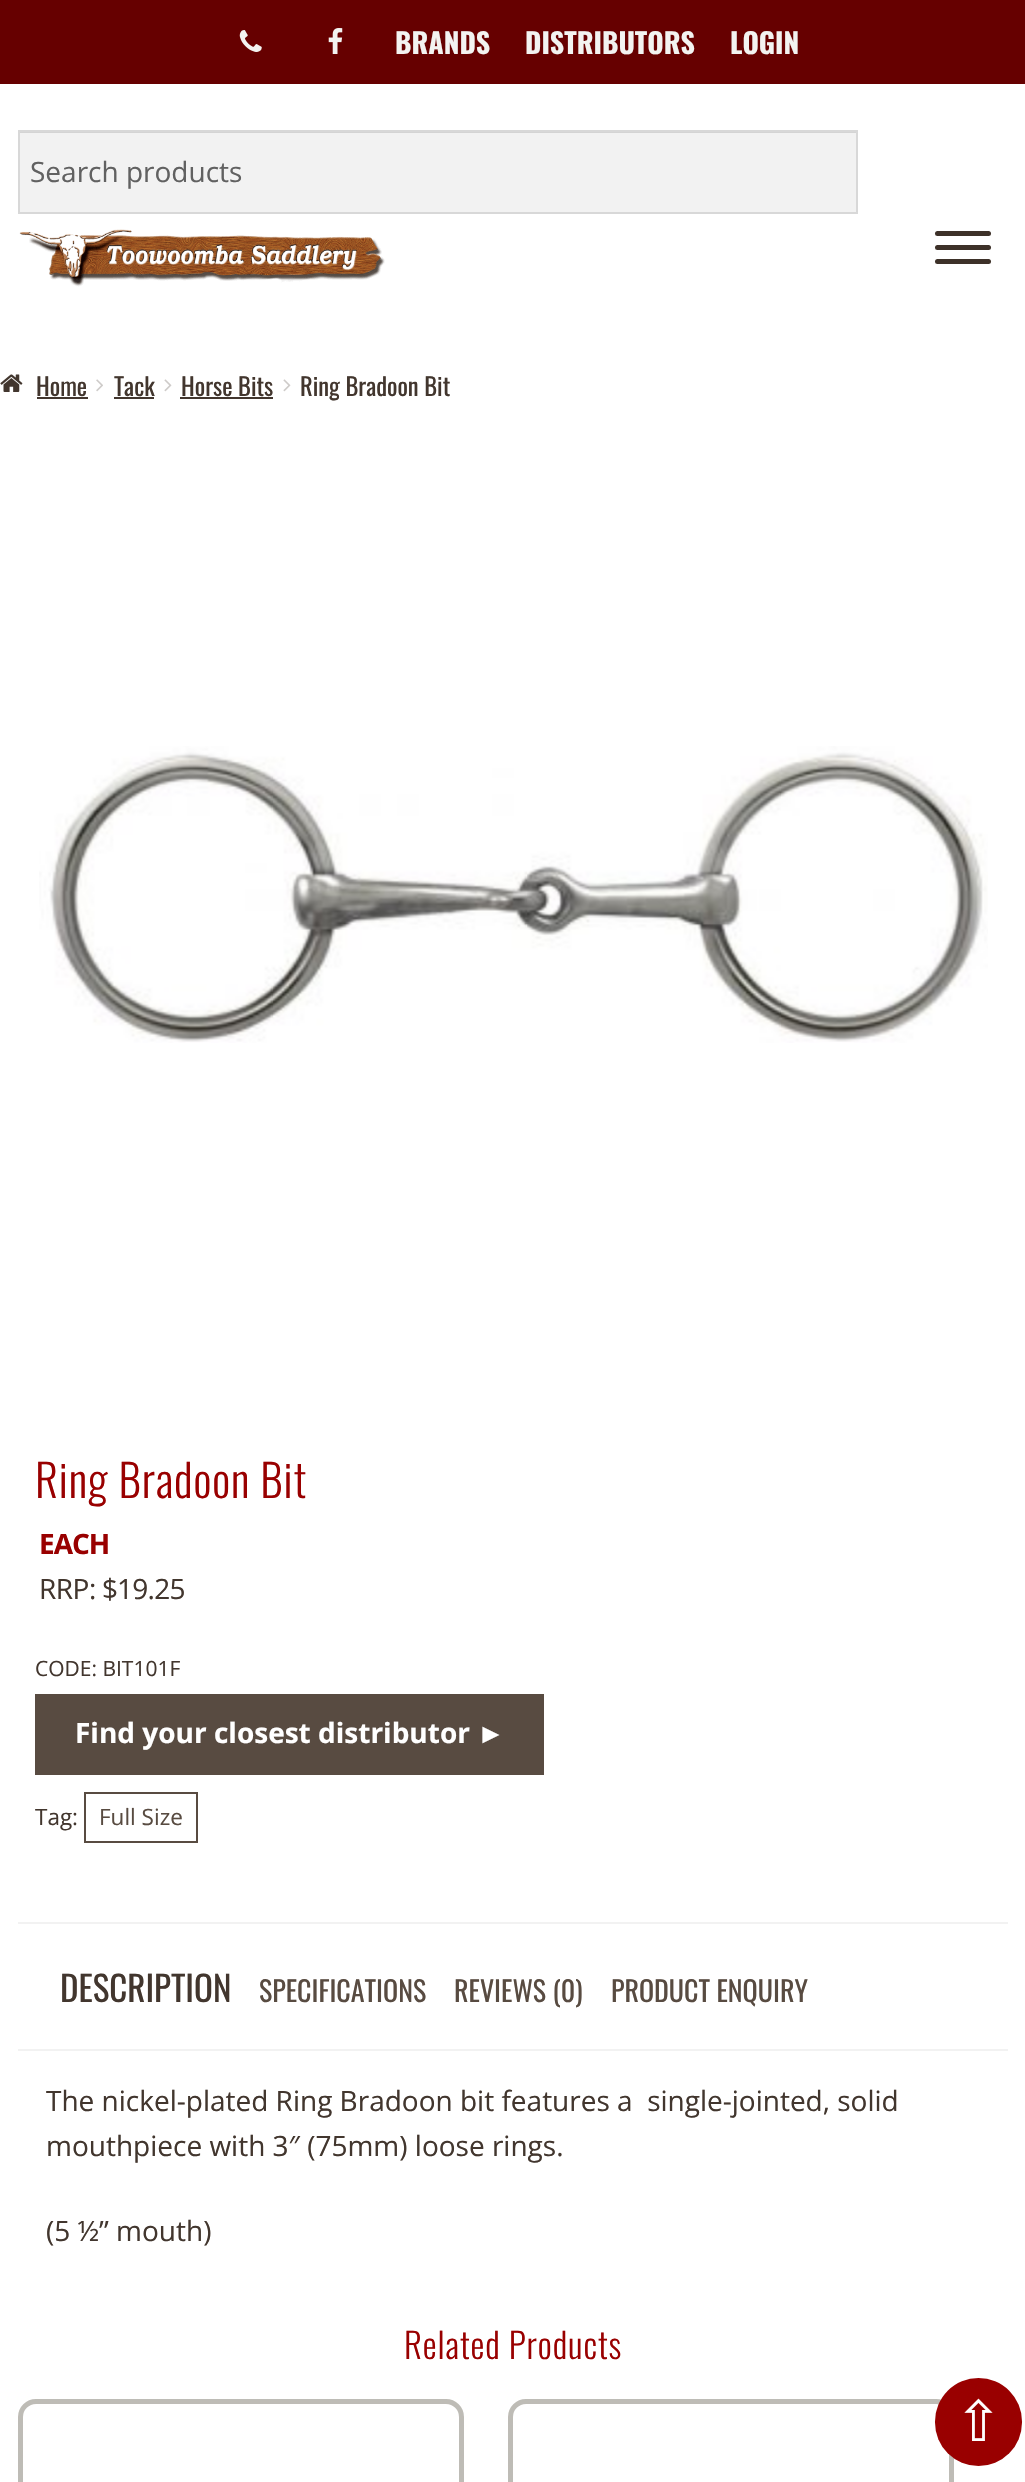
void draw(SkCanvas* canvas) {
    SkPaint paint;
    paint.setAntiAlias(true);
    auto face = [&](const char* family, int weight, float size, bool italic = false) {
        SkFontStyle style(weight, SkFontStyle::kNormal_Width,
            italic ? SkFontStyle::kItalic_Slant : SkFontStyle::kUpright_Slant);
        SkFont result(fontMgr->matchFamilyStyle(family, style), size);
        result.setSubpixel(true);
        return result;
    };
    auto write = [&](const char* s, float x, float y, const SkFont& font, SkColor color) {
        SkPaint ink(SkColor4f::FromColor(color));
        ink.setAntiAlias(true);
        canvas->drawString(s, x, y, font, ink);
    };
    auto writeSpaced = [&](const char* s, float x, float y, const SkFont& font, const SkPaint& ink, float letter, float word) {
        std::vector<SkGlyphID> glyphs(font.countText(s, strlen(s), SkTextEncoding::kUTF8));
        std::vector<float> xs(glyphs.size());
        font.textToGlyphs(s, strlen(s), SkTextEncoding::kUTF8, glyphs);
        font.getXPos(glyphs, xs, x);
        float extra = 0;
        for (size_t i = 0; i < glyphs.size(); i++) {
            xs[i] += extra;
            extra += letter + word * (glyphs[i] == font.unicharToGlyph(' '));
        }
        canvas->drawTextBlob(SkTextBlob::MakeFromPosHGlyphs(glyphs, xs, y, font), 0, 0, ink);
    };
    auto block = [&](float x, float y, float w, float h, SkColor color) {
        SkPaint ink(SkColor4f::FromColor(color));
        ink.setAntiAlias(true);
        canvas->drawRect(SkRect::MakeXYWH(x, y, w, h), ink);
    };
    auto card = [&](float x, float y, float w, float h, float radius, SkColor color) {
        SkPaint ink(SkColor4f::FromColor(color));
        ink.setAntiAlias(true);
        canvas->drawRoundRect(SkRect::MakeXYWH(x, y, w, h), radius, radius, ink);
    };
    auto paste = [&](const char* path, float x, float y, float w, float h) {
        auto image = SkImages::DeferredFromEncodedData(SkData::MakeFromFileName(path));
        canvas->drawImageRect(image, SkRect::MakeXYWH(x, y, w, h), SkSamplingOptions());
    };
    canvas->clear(SK_ColorWHITE);
    block(0, 0, 1025, 84, SkColorSetRGB(102, 0, 0));
    paste("pic1.png", 239, 30, 23, 22);
    paste("pic2.png", 328, 28, 15, 26);
    auto kFont1 = face("Oswald", 700, 28);
    write("BRANDS", 395, 54, kFont1, SkColorSetRGB(243, 243, 241));
    write("DISTRIBUTORS", 525, 54, kFont1, SkColorSetRGB(243, 243, 241));
    write("LOGIN", 730, 54, kFont1, SkColorSetRGB(243, 243, 241));
    block(20, 133, 836, 79, SkColorSetRGB(242, 242, 242));
    block(19, 132, 837, 1, SkColorSetRGB(212, 212, 212));
    paint.setStyle(SkPaint::kStroke_Style);
    paint.setStrokeWidth(2);
    paint.setColor(SkColorSetRGB(216, 216, 216));
    canvas->drawRect(SkRect::MakeXYWH(19, 131, 838, 82), paint);
    auto kFont2 = face("Open Sans", 400, 28);
    write("Search products", 30, 182, kFont2, SkColorSetRGB(97, 97, 97));
    paste("pic3.png", 19, 229, 366, 58);
    card(935, 231, 56, 5, 2.5f, SkColorSetRGB(61, 49, 41));
    card(935, 245, 56, 5, 2.5f, SkColorSetRGB(61, 49, 41));
    card(935, 259, 56, 5, 2.5f, SkColorSetRGB(61, 49, 41));
    paste("pic4.png", 0, 374, 23, 18);
    auto kFont3 = face("Oswald", 400, 24.5f);
    write("Home", 36, 396, kFont3, SkColorSetRGB(66, 54, 46));
    block(37, 397, 51, 2, SkColorSetRGB(66, 54, 46));
    paste("pic5.png", 96, 379, 7, 13);
    write("Tack", 114, 396, kFont3, SkColorSetRGB(66, 54, 46));
    block(114, 397, 40, 2, SkColorSetRGB(66, 54, 46));
    paste("pic6.png", 164, 379, 8, 13);
    write("Horse Bits", 181, 396, kFont3, SkColorSetRGB(66, 54, 46));
    block(180, 397, 93, 2, SkColorSetRGB(66, 54, 46));
    paste("pic6.png", 283, 379, 8, 13);
    write("Ring Bradoon Bit", 300, 396, kFont3, SkColorSetRGB(66, 54, 46));
    paste("pic7.png", 39, 746, 949, 297);
    auto kFont4 = face("Oswald", 300, 44.75f);
    paint.setStyle(SkPaint::kFill_Style);
    paint.setColor(SkColorSetRGB(153, 0, 0));
    writeSpaced("Ring Bradoon Bit", 35, 1498, kFont4, paint, 0.9f, 0);
    auto kFont5 = face("Open Sans", 700, 28);
    writeSpaced("EACH", 39, 1554, kFont5, paint, -1, 0);
    paint.setColor(SkColorSetRGB(66, 54, 46));
    writeSpaced("RRP:", 39, 1599, kFont2, paint, -0.5f, 0);
    writeSpaced("$", 102, 1599, kFont2, paint, -1, 0);
    writeSpaced("19.25", 117, 1599, kFont2, paint, -0.75f, 0);
    auto kFont6 = face("Open Sans", 400, 21);
    write("CODE: BIT101F", 35, 1676, kFont6, SkColorSetRGB(66, 54, 46));
    block(35, 1694, 509, 81, SkColorSetRGB(88, 75, 65));
    write("Find your closest distributor", 75, 1743, kFont5, SK_ColorWHITE);
    auto kFont7 = face("Liberation Sans", 700, 28);
    write("►", 477, 1743, kFont7, SK_ColorWHITE);
    auto kFont8 = face("Open Sans", 400, 22.5f);
    write("Tag:", 35, 1825, kFont8, SkColorSetRGB(66, 54, 46));
    paint.setStyle(SkPaint::kStroke_Style);
    paint.setColor(SkColorSetRGB(88, 75, 65));
    canvas->drawRect(SkRect::MakeXYWH(85, 1793, 112, 49), paint);
    write("Full Size", 99, 1825, kFont8, SkColorSetRGB(88, 75, 65));
    block(18, 1922, 990, 2, SkColorSetRGB(242, 242, 242));
    block(18, 2049, 990, 2, SkColorSetRGB(242, 242, 242));
    auto kFont9 = face("Oswald", 400, 35);
    write("DESCRIPTION", 60, 2002, kFont9, SkColorSetRGB(66, 54, 46));
    auto kFont10 = face("Oswald", 400, 28);
    write("SPECIFICATIONS", 259, 2002, kFont10, SkColorSetRGB(88, 75, 65));
    write("REVIEWS (0)", 454, 2002, kFont10, SkColorSetRGB(88, 75, 65));
    write("PRODUCT ENQUIRY", 611, 2002, kFont10, SkColorSetRGB(88, 75, 65));
    write("The nickel-plated Ring Bradoon bit features a  single-jointed, solid", 46, 2111, kFont2, SkColorSetRGB(66, 54, 46));
    write("mouthpiece with 3″ (75mm) loose rings.", 46, 2156, kFont2, SkColorSetRGB(66, 54, 46));
    write("(5 ½” mouth)", 46, 2241, kFont2, SkColorSetRGB(66, 54, 46));
    auto kFont11 = face("Oswald", 300, 35);
    paint.setStyle(SkPaint::kFill_Style);
    paint.setColor(SkColorSetRGB(153, 0, 0));
    writeSpaced("Related Products", 404, 2359, kFont11, paint, 0.9f, 0);
    paint.setStyle(SkPaint::kStroke_Style);
    paint.setStrokeWidth(5);
    paint.setColor(SkColorSetRGB(190, 188, 182));
    canvas->drawRoundRect(SkRect::MakeXYWH(20.5f, 2401.5f, 441, 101), 15.5f, 15.5f, paint);
    canvas->drawRoundRect(SkRect::MakeXYWH(510.5f, 2401.5f, 441, 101), 15.5f, 15.5f, paint);
    card(935, 2378, 87, 88, 43.5f, SkColorSetRGB(153, 0, 0));
    auto kFont12 = face("DejaVu Sans", 400, 56);
    write("⇧", 955, 2441, kFont12, SK_ColorWHITE);
}
